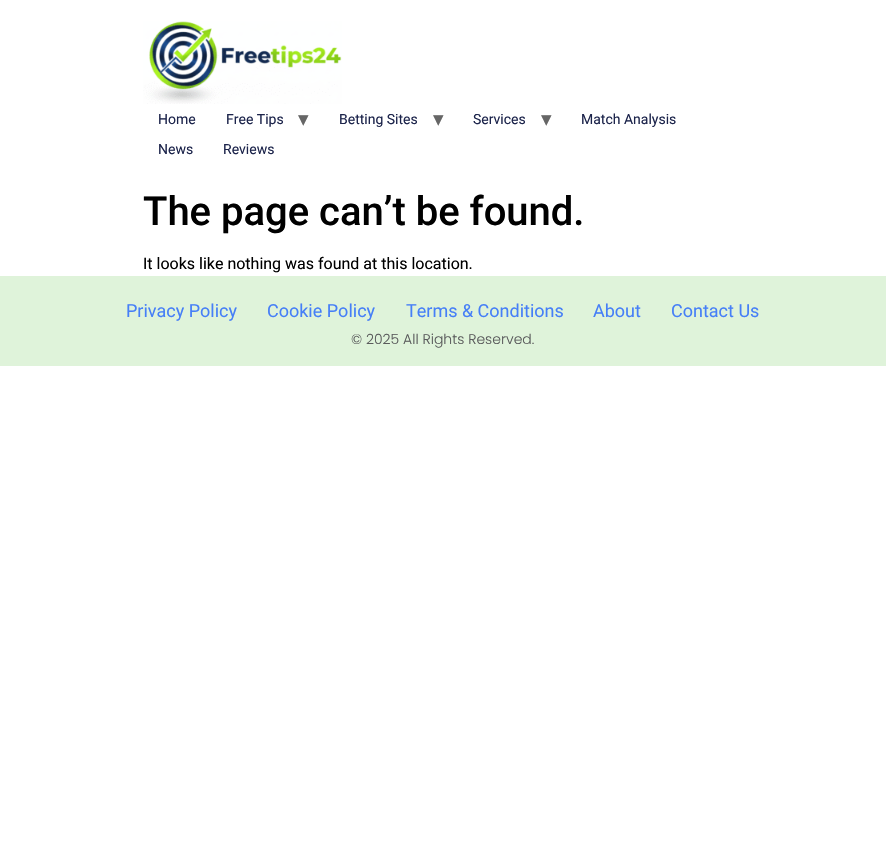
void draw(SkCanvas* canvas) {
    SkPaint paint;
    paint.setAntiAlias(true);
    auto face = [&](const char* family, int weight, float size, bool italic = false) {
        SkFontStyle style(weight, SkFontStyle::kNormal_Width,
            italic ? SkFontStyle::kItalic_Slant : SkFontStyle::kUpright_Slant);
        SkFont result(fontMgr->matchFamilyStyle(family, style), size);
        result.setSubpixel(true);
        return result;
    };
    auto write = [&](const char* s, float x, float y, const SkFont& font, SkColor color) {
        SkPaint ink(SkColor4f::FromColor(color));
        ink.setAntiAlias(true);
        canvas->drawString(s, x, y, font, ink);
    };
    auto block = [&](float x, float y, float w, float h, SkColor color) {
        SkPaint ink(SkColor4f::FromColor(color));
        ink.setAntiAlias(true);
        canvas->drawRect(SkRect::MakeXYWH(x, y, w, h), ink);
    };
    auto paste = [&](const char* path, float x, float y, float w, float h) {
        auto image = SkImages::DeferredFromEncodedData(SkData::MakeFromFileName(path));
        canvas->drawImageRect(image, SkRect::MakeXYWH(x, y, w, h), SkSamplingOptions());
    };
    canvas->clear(SK_ColorWHITE);
    paste("pic1.png", 143, 21, 199, 83);
    auto kFont1 = face("Roboto", 400, 14);
    write("Home", 158, 124, kFont1, SkColorSetRGB(28, 36, 75));
    write("Free Tips", 226, 124, kFont1, SkColorSetRGB(28, 36, 75));
    auto kFont2 = face("DejaVu Sans", 400, 21);
    write("▾", 298, 126, kFont2, SkColorSetRGB(102, 102, 102));
    write("Betting Sites", 339, 124, kFont1, SkColorSetRGB(28, 36, 75));
    write("▾", 433, 126, kFont2, SkColorSetRGB(102, 102, 102));
    write("Services", 473, 124, kFont1, SkColorSetRGB(28, 36, 75));
    write("▾", 541, 126, kFont2, SkColorSetRGB(102, 102, 102));
    write("Match Analysis", 581, 124, kFont1, SkColorSetRGB(28, 36, 75));
    write("News", 158, 154, kFont1, SkColorSetRGB(28, 36, 75));
    write("Reviews", 223, 154, kFont1, SkColorSetRGB(28, 36, 75));
    auto kFont3 = face("Roboto", 500, 40);
    write("The page can’t be found.", 143, 225, kFont3, SK_ColorBLACK);
    auto kFont4 = face("Roboto", 400, 16);
    write("It looks like nothing was found at this location.", 143, 269, kFont4, SK_ColorBLACK);
    block(0, 276, 886, 90, SkColorSetRGB(223, 243, 218));
    auto kFont5 = face("Roboto", 400, 18);
    write("Privacy Policy", 126, 317, kFont5, SkColorSetRGB(70, 127, 247));
    write("Cookie Policy", 267, 317, kFont5, SkColorSetRGB(70, 127, 247));
    write("Terms & Conditions", 406, 317, kFont5, SkColorSetRGB(70, 127, 247));
    write("About", 593, 317, kFont5, SkColorSetRGB(70, 127, 247));
    write("Contact Us", 671, 317, kFont5, SkColorSetRGB(70, 127, 247));
    auto kFont6 = face("Poppins", 300, 14);
    write("© 2025 All Rights Reserved.", 351, 344, kFont6, SkColorSetRGB(90, 91, 92));
}
